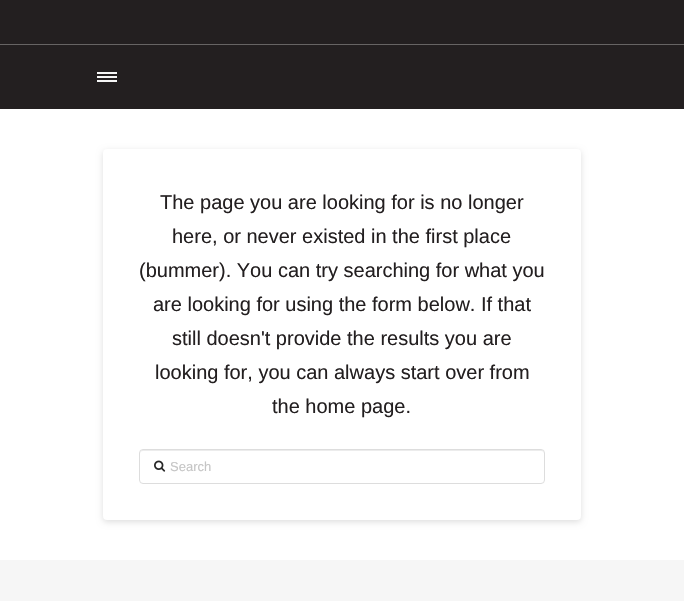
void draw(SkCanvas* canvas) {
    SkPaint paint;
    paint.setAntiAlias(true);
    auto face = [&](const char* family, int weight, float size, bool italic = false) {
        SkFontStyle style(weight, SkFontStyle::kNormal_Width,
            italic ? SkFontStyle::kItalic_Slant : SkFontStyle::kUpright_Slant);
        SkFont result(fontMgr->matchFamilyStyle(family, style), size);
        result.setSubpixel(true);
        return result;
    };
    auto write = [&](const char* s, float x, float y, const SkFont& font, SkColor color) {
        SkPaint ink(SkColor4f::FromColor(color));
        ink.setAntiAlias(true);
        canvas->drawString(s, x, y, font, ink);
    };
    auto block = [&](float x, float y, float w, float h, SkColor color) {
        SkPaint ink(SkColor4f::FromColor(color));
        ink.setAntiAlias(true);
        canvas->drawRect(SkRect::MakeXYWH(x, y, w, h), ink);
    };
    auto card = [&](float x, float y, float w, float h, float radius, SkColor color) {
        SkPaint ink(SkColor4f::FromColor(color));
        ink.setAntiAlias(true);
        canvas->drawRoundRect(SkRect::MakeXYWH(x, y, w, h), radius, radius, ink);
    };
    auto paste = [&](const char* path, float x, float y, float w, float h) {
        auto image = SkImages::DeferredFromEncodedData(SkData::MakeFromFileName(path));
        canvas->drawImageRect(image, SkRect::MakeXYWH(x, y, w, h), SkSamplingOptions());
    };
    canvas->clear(SK_ColorWHITE);
    block(0, 0, 684, 44, SkColorSetRGB(35, 31, 32));
    block(0, 44, 684, 1, SkColorSetRGB(103, 100, 100));
    block(0, 45, 684, 64, SkColorSetRGB(35, 31, 32));
    block(97, 72, 20, 2, SkColorSetRGB(246, 246, 246));
    block(97, 76, 20, 2, SkColorSetRGB(246, 246, 246));
    block(97, 80, 20, 2, SkColorSetRGB(246, 246, 246));
    paint.setColor(SkColorSetARGB(33, 0, 0, 0));
    paint.setMaskFilter(SkMaskFilter::MakeBlur(kNormal_SkBlurStyle, 3));
    canvas->drawRoundRect(SkRect::MakeXYWH(103, 151, 478, 371), 4, 4, paint);
    paint.setMaskFilter(nullptr);
    card(103, 149, 478, 371, 4, SK_ColorWHITE);
    auto kFont1 = face("Liberation Sans", 400, 20);
    write("The page you are looking for is no longer", 160, 209, kFont1, SkColorSetRGB(35, 31, 32));
    write("here, or never existed in the first place", 172, 243, kFont1, SkColorSetRGB(35, 31, 32));
    write("(bummer). You can try searching for what you", 139, 277, kFont1, SkColorSetRGB(35, 31, 32));
    write("are looking for using the form below. If that", 153, 311, kFont1, SkColorSetRGB(35, 31, 32));
    write("still doesn't provide the results you are", 172, 345, kFont1, SkColorSetRGB(35, 31, 32));
    write("looking for, you can always start over from", 155, 379, kFont1, SkColorSetRGB(35, 31, 32));
    write("the home page.", 272, 413, kFont1, SkColorSetRGB(35, 31, 32));
    paint.setColor(SkColorSetRGB(236, 236, 236));
    canvas->drawPath(SkPathBuilder().moveTo(143, 451).lineTo(541, 451).cubicTo(543, 451, 544, 452, 544, 454).cubicTo(544, 452, 543, 450, 541, 450).lineTo(143, 450).cubicTo(141, 450, 140, 452, 140, 454).cubicTo(140, 452, 141, 451, 143, 451).close().detach(), paint);
    paint.setStyle(SkPaint::kStroke_Style);
    paint.setStrokeWidth(1);
    paint.setColor(SkColorSetRGB(221, 221, 221));
    canvas->drawRoundRect(SkRect::MakeXYWH(139.5f, 449.5f, 405, 34), 3.5f, 3.5f, paint);
    paste("pic1.png", 154, 460, 12, 12);
    auto kFont2 = face("Liberation Sans", 400, 13);
    write("Search", 170, 471, kFont2, SkColorSetRGB(197, 197, 197));
    block(0, 560, 684, 41, SkColorSetRGB(246, 246, 246));
}
